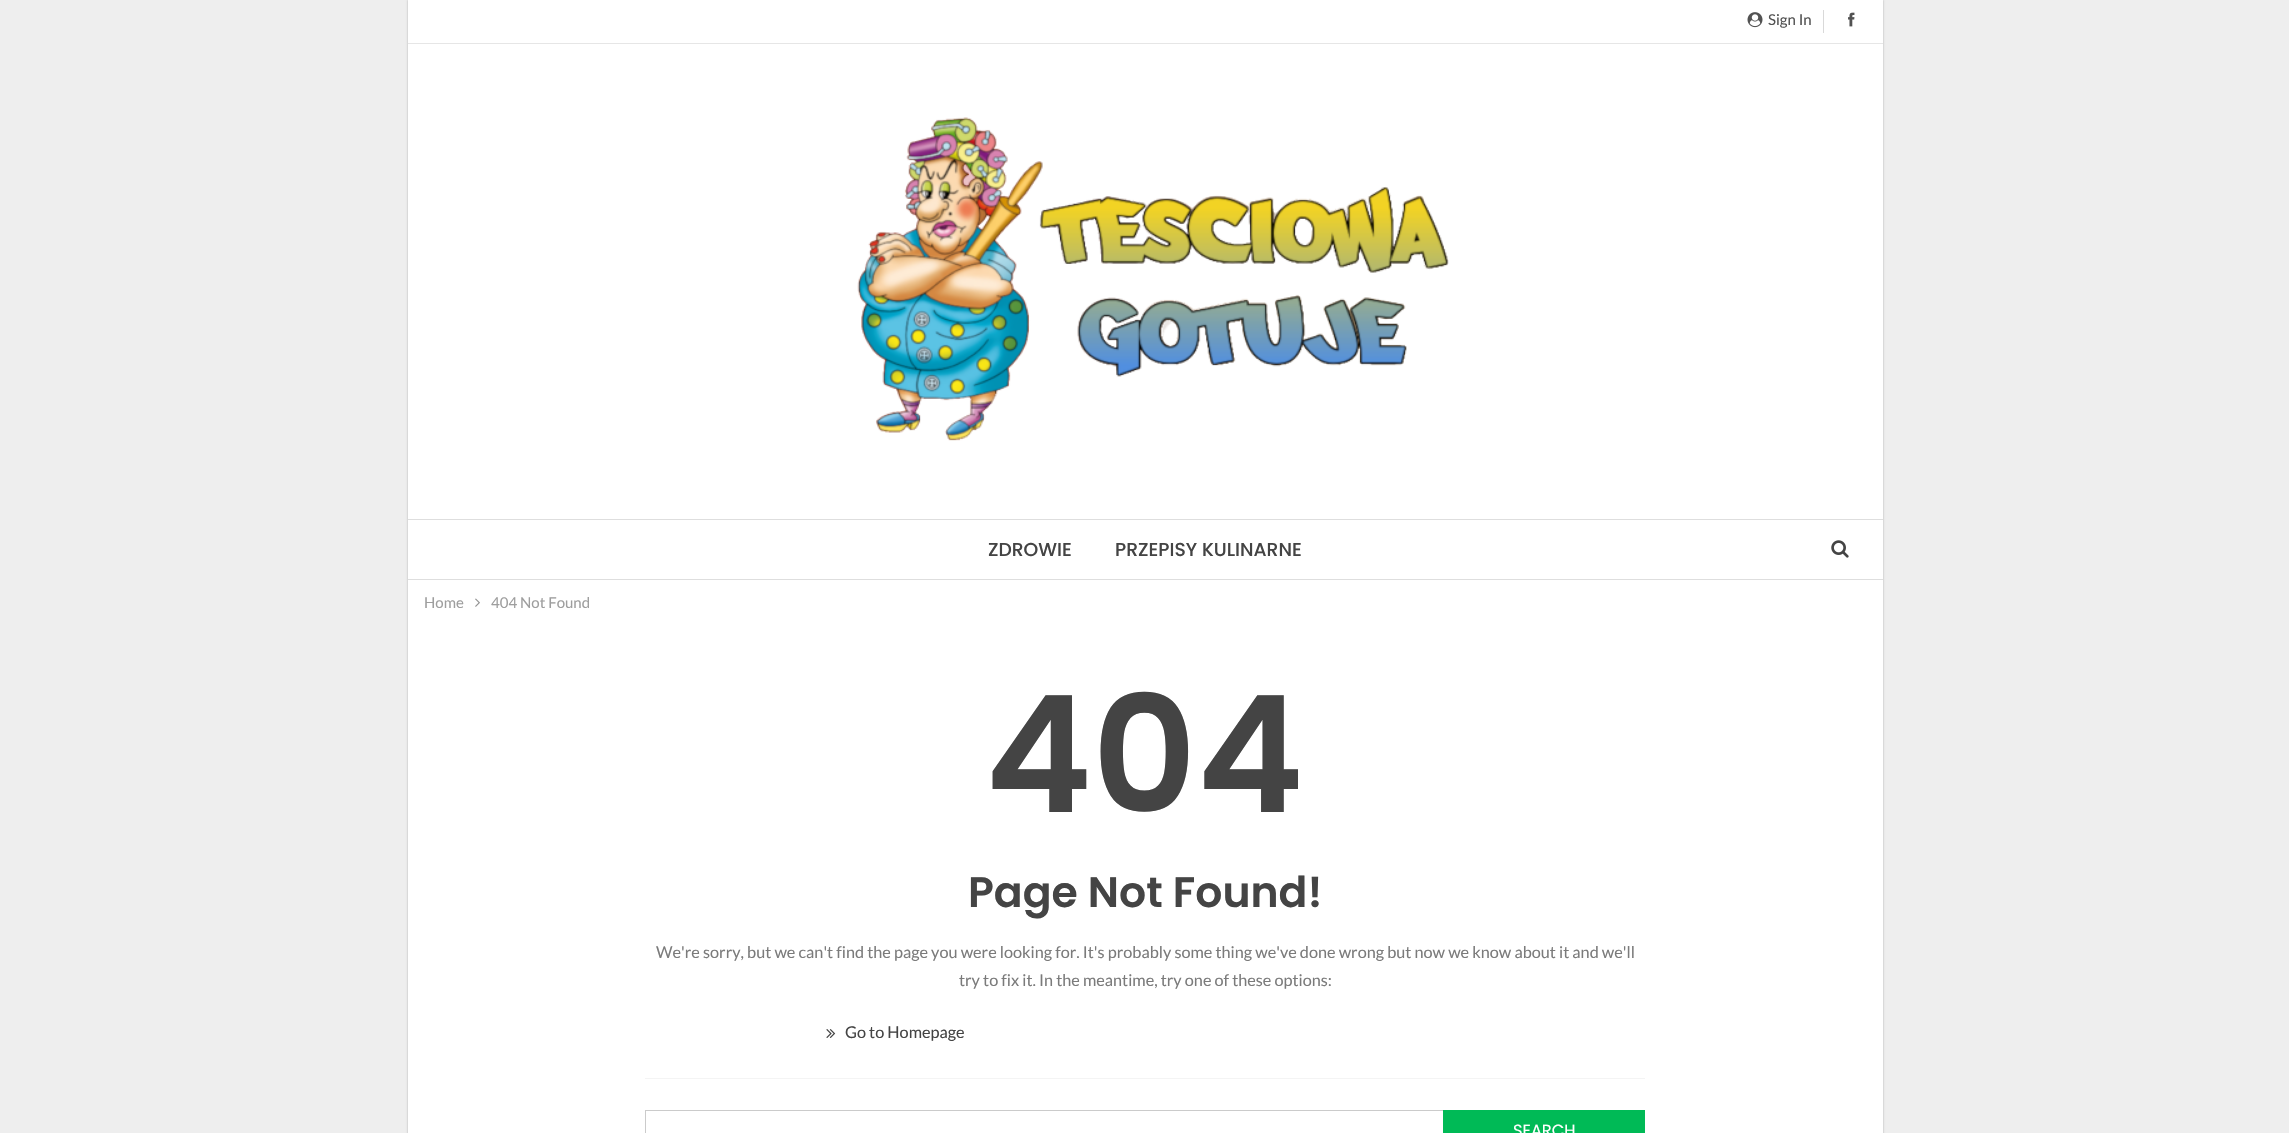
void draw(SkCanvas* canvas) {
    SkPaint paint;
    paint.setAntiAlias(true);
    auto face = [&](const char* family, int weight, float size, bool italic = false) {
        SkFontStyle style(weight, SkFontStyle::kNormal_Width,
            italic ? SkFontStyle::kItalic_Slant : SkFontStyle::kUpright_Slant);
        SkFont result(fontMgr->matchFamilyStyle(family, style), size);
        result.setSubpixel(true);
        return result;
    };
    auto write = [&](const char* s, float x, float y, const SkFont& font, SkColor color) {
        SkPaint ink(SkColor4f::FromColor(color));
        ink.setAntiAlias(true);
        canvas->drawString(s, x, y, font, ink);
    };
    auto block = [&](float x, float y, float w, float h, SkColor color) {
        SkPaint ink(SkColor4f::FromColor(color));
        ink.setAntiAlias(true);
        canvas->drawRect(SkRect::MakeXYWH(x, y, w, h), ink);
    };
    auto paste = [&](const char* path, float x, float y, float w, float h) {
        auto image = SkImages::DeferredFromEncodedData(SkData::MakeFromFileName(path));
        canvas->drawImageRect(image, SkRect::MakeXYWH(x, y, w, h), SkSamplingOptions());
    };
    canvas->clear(SkColorSetRGB(238, 238, 238));
    paint.setColor(SkColorSetARGB(69, 0, 0, 0));
    paint.setMaskFilter(SkMaskFilter::MakeBlur(kNormal_SkBlurStyle, 1));
    canvas->drawRect(SkRect::MakeXYWH(408, 0, 1475, 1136), paint);
    paint.setMaskFilter(nullptr);
    block(408, 0, 1475, 1133, SK_ColorWHITE);
    block(408, 43, 1475, 1, SkColorSetRGB(230, 230, 230));
    paste("pic1.png", 1747, 12, 16, 16);
    auto kFont1 = face("Lato", 400, 15);
    write("Sign In", 1768, 25, kFont1, SkColorSetRGB(82, 82, 82));
    block(1823, 10, 1, 23, SkColorSetRGB(217, 217, 217));
    paste("pic2.png", 1848, 12, 7, 15);
    paste("pic3.png", 857, 117, 592, 324);
    block(408, 519, 1475, 1, SkColorSetRGB(222, 222, 222));
    block(408, 579, 1475, 1, SkColorSetRGB(222, 222, 222));
    auto kFont2 = face("Poppins", 500, 18.75f);
    write("ZDROWIE", 988, 556, kFont2, SkColorSetRGB(68, 68, 68));
    write("PRZEPISY KULINARNE", 1115, 556, kFont2, SkColorSetRGB(68, 68, 68));
    paste("pic4.png", 1831, 540, 18, 18);
    write("Home", 424, 608, kFont1, SkColorSetRGB(158, 158, 158));
    paste("pic5.png", 475, 598, 5, 9);
    write("404 Not Found", 491, 608, kFont1, SkColorSetRGB(158, 158, 158));
    auto kFont3 = face("Poppins", 600, 162);
    write("404", 985, 812, kFont3, SkColorSetRGB(68, 68, 68));
    auto kFont4 = face("Poppins", 600, 42.5f);
    write("Page Not Found!", 968, 907, kFont4, SkColorSetRGB(68, 68, 68));
    auto kFont5 = face("Lato", 400, 16.25f);
    write("We're sorry, but we can't find the page you were looking for. It's probably some thing we've done wrong but now we know about it and we'll", 656, 958, kFont5, SkColorSetRGB(123, 123, 123));
    write("try to fix it. In the meantime, try one of these options:", 959, 986, kFont5, SkColorSetRGB(123, 123, 123));
    paste("pic6.png", 826, 1029, 10, 9);
    write("Go to Homepage", 845, 1038, kFont5, SkColorSetRGB(68, 68, 68));
    block(645, 1078, 1000, 1, SkColorSetRGB(244, 244, 244));
    paint.setStyle(SkPaint::kStroke_Style);
    paint.setStrokeWidth(1);
    paint.setColor(SkColorSetRGB(203, 203, 203));
    canvas->drawRect(SkRect::MakeXYWH(645.5f, 1110.5f, 999, 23), paint);
    block(1443, 1110, 202, 23, SkColorSetRGB(0, 186, 86));
    auto kFont6 = face("Poppins", 400, 16.25f);
    write("SEARCH", 1513, 1136, kFont6, SK_ColorWHITE);
}
